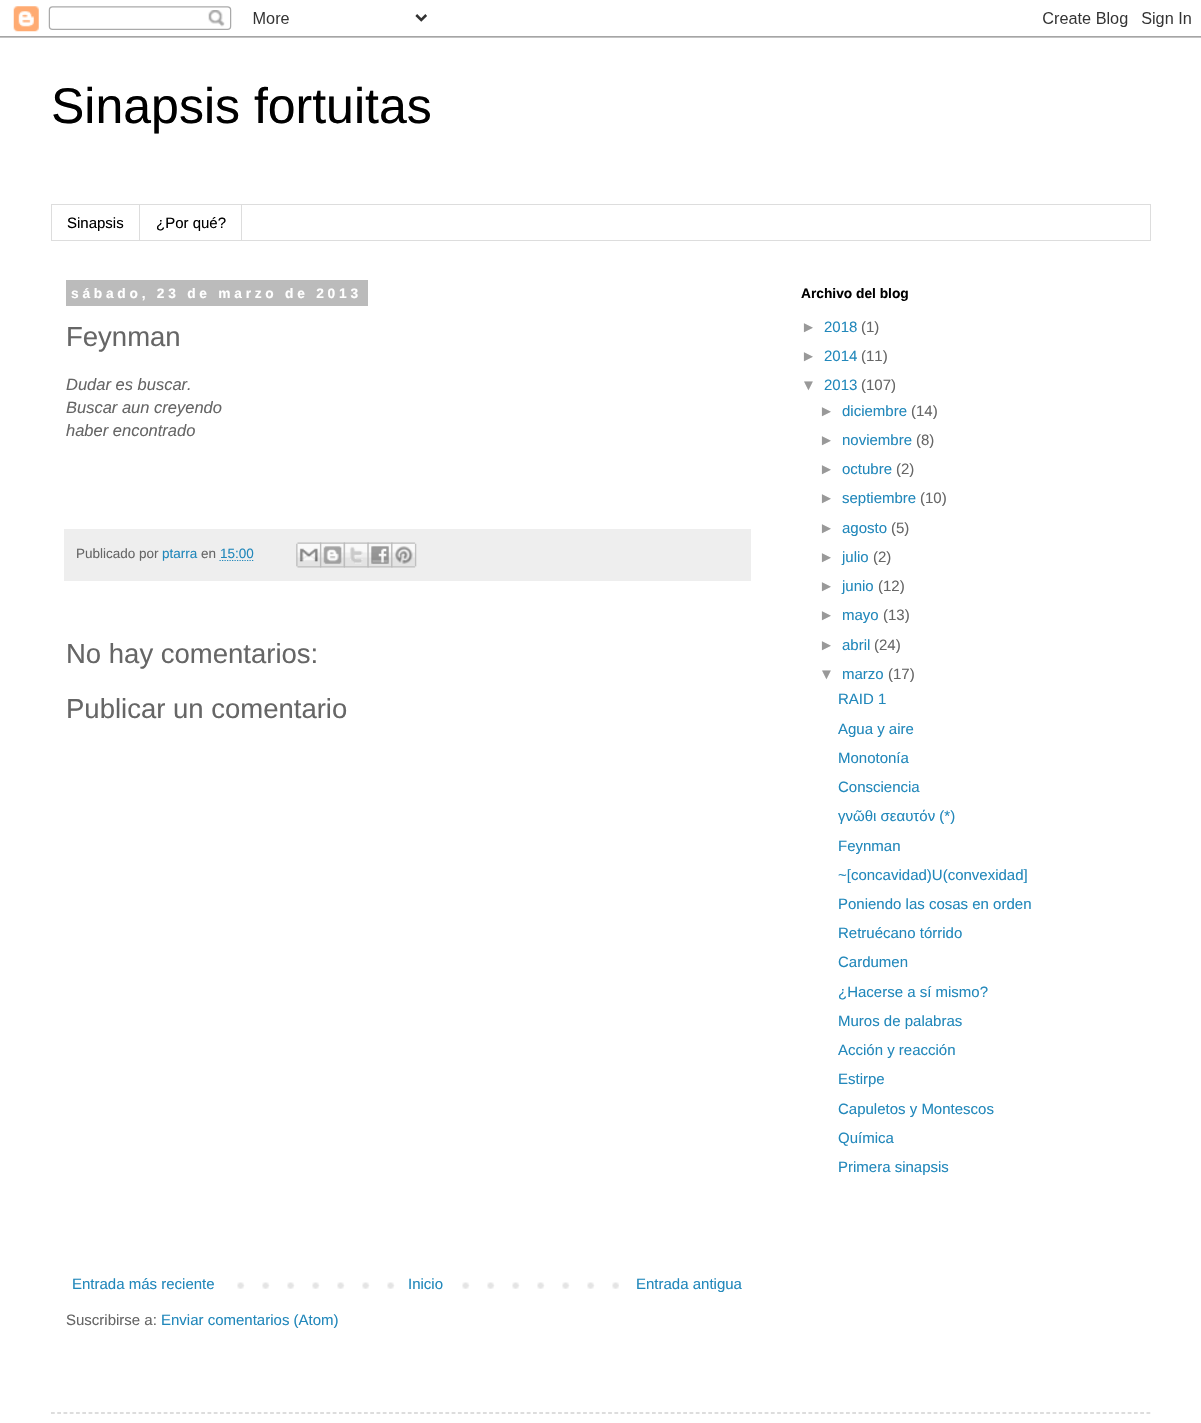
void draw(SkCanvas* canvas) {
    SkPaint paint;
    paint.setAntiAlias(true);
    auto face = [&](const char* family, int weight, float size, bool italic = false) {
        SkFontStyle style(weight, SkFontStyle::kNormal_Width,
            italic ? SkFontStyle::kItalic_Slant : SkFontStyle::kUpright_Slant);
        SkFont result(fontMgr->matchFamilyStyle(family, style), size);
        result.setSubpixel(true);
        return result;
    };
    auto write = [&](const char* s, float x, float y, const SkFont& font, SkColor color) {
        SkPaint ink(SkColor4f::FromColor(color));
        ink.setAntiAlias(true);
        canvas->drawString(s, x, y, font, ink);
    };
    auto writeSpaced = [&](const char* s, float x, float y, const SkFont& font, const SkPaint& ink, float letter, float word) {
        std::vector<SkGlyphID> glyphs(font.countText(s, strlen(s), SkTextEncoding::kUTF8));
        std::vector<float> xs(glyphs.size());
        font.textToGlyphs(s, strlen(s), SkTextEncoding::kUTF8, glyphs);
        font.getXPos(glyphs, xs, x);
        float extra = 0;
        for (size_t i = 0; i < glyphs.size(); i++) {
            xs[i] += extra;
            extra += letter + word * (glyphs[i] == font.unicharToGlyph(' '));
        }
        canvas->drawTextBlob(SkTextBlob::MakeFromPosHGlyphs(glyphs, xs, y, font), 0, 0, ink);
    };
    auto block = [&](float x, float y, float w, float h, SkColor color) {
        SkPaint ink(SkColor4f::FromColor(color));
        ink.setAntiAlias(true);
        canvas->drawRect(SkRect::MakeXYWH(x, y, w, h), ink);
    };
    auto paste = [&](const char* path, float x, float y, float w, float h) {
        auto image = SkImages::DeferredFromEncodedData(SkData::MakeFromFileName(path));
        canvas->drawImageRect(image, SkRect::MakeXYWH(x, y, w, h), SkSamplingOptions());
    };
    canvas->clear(SK_ColorWHITE);
    paste("pic1.png", 0, 6, 1201, 32);
    auto kFont1 = face("Liberation Sans", 400, 50);
    write("Sinapsis fortuitas", 51, 123, kFont1, SK_ColorBLACK);
    paint.setStyle(SkPaint::kStroke_Style);
    paint.setStrokeWidth(1);
    paint.setColor(SkColorSetRGB(221, 221, 221));
    canvas->drawRect(SkRect::MakeXYWH(51.5f, 204.5f, 1099, 36), paint);
    block(139, 205, 1, 35, SkColorSetRGB(221, 221, 221));
    auto kFont2 = face("Liberation Sans", 400, 15);
    write("Sinapsis", 67, 228, kFont2, SK_ColorBLACK);
    block(241, 205, 1, 35, SkColorSetRGB(221, 221, 221));
    write("¿Por qué?", 156, 228, kFont2, SK_ColorBLACK);
    block(66, 280, 302, 26, SkColorSetRGB(187, 187, 187));
    auto kFont3 = face("Liberation Sans", 700, 13.75f);
    paint.setStyle(SkPaint::kFill_Style);
    paint.setColor(SK_ColorWHITE);
    writeSpaced("sábado, 23 de marzo de 2013", 71, 298, kFont3, paint, 3.75f, 0);
    auto kFont4 = face("Liberation Sans", 400, 27.5f);
    write("Feynman", 66, 346, kFont4, SkColorSetRGB(102, 102, 102));
    auto kFont5 = face("Liberation Sans", 400, 16.5f, true);
    write("Dudar es buscar.", 66, 390, kFont5, SkColorSetRGB(102, 102, 102));
    write("Buscar aun creyendo", 66, 413, kFont5, SkColorSetRGB(102, 102, 102));
    write("haber encontrado", 66, 436, kFont5, SkColorSetRGB(102, 102, 102));
    block(64, 529, 687, 52, SkColorSetRGB(238, 238, 238));
    auto kFont6 = face("Liberation Sans", 400, 13.5f);
    write("Publicado por", 76, 558, kFont6, SkColorSetRGB(102, 102, 102));
    write("ptarra", 162, 558, kFont6, SkColorSetRGB(34, 136, 187));
    write("en", 201, 558, kFont6, SkColorSetRGB(102, 102, 102));
    write("15:00", 220, 558, kFont6, SkColorSetRGB(34, 136, 187));
    paint.setStyle(SkPaint::kStroke_Style);
    paint.setStrokeWidth(1.2f);
    paint.setColor(SkColorSetRGB(34, 136, 187));
    paint.setPathEffect(SkDashPathEffect::Make({{1.25f, 1.25f}}, 0));
    canvas->drawPath(SkPathBuilder().moveTo(219.5f, 560.5f).lineTo(253.5f, 560.5f).detach(), paint);
    paint.setPathEffect(nullptr);
    paste("pic2.png", 296, 542, 26, 26);
    paste("pic3.png", 320, 542, 25, 26);
    paste("pic4.png", 343, 542, 26, 26);
    paste("pic5.png", 367, 542, 26, 26);
    paste("pic6.png", 391, 542, 26, 26);
    write("No hay comentarios:", 66, 663, kFont4, SkColorSetRGB(102, 102, 102));
    write("Publicar un comentario", 66, 718, kFont4, SkColorSetRGB(102, 102, 102));
    paste("pic7.png", 237, 1282, 382, 7);
    write("Entrada más reciente", 72, 1289, kFont2, SkColorSetRGB(34, 136, 187));
    block(412, 1282, 33, 7, SK_ColorWHITE);
    write("Inicio", 408, 1289, kFont2, SkColorSetRGB(34, 136, 187));
    write("Entrada antigua", 636, 1289, kFont2, SkColorSetRGB(34, 136, 187));
    write("Suscribirse a:", 66, 1325, kFont2, SkColorSetRGB(102, 102, 102));
    write("Enviar comentarios (Atom)", 161, 1325, kFont2, SkColorSetRGB(34, 136, 187));
    write("Archivo del blog", 801, 298, kFont3, SK_ColorBLACK);
    write("►", 801, 332, kFont2, SkColorSetRGB(153, 153, 153));
    write("2018", 824, 332, kFont2, SkColorSetRGB(34, 136, 187));
    write("(1)", 861, 332, kFont2, SkColorSetRGB(102, 102, 102));
    write("►", 801, 361, kFont2, SkColorSetRGB(153, 153, 153));
    write("2014", 824, 361, kFont2, SkColorSetRGB(34, 136, 187));
    write("(11)", 861, 361, kFont2, SkColorSetRGB(102, 102, 102));
    write("▼", 801, 390, kFont2, SkColorSetRGB(153, 153, 153));
    write("2013", 824, 390, kFont2, SkColorSetRGB(34, 136, 187));
    write("(107)", 861, 390, kFont2, SkColorSetRGB(102, 102, 102));
    write("►", 819, 416, kFont2, SkColorSetRGB(153, 153, 153));
    write("diciembre", 842, 416, kFont2, SkColorSetRGB(34, 136, 187));
    write("(14)", 911, 416, kFont2, SkColorSetRGB(102, 102, 102));
    write("►", 819, 445, kFont2, SkColorSetRGB(153, 153, 153));
    write("noviembre", 842, 445, kFont2, SkColorSetRGB(34, 136, 187));
    write("(8)", 916, 445, kFont2, SkColorSetRGB(102, 102, 102));
    write("►", 819, 474, kFont2, SkColorSetRGB(153, 153, 153));
    write("octubre", 842, 474, kFont2, SkColorSetRGB(34, 136, 187));
    write("(2)", 896, 474, kFont2, SkColorSetRGB(102, 102, 102));
    write("►", 819, 503, kFont2, SkColorSetRGB(153, 153, 153));
    write("septiembre", 842, 503, kFont2, SkColorSetRGB(34, 136, 187));
    write("(10)", 920, 503, kFont2, SkColorSetRGB(102, 102, 102));
    write("►", 819, 533, kFont2, SkColorSetRGB(153, 153, 153));
    write("agosto", 842, 533, kFont2, SkColorSetRGB(34, 136, 187));
    write("(5)", 891, 533, kFont2, SkColorSetRGB(102, 102, 102));
    write("►", 819, 562, kFont2, SkColorSetRGB(153, 153, 153));
    write("julio", 842, 562, kFont2, SkColorSetRGB(34, 136, 187));
    write("(2)", 873, 562, kFont2, SkColorSetRGB(102, 102, 102));
    write("►", 819, 591, kFont2, SkColorSetRGB(153, 153, 153));
    write("junio", 842, 591, kFont2, SkColorSetRGB(34, 136, 187));
    write("(12)", 878, 591, kFont2, SkColorSetRGB(102, 102, 102));
    write("►", 819, 620, kFont2, SkColorSetRGB(153, 153, 153));
    write("mayo", 842, 620, kFont2, SkColorSetRGB(34, 136, 187));
    write("(13)", 883, 620, kFont2, SkColorSetRGB(102, 102, 102));
    write("►", 819, 650, kFont2, SkColorSetRGB(153, 153, 153));
    write("abril", 842, 650, kFont2, SkColorSetRGB(34, 136, 187));
    write("(24)", 874, 650, kFont2, SkColorSetRGB(102, 102, 102));
    write("▼", 819, 679, kFont2, SkColorSetRGB(153, 153, 153));
    write("marzo", 842, 679, kFont2, SkColorSetRGB(34, 136, 187));
    write("(17)", 888, 679, kFont2, SkColorSetRGB(102, 102, 102));
    write("RAID 1", 838, 704, kFont2, SkColorSetRGB(34, 136, 187));
    write("Agua y aire", 838, 734, kFont2, SkColorSetRGB(34, 136, 187));
    write("Monotonía", 838, 763, kFont2, SkColorSetRGB(34, 136, 187));
    write("Consciencia", 838, 792, kFont2, SkColorSetRGB(34, 136, 187));
    write("γνῶθι σεαυτόν (*)", 838, 821, kFont2, SkColorSetRGB(34, 136, 187));
    write("Feynman", 838, 851, kFont2, SkColorSetRGB(34, 136, 187));
    write("~[concavidad)U(convexidad]", 838, 880, kFont2, SkColorSetRGB(34, 136, 187));
    write("Poniendo las cosas en orden", 838, 909, kFont2, SkColorSetRGB(34, 136, 187));
    write("Retruécano tórrido", 838, 938, kFont2, SkColorSetRGB(34, 136, 187));
    write("Cardumen", 838, 967, kFont2, SkColorSetRGB(34, 136, 187));
    write("¿Hacerse a sí mismo?", 838, 997, kFont2, SkColorSetRGB(34, 136, 187));
    write("Muros de palabras", 838, 1026, kFont2, SkColorSetRGB(34, 136, 187));
    write("Acción y reacción", 838, 1055, kFont2, SkColorSetRGB(34, 136, 187));
    write("Estirpe", 838, 1084, kFont2, SkColorSetRGB(34, 136, 187));
    write("Capuletos y Montescos", 838, 1114, kFont2, SkColorSetRGB(34, 136, 187));
    write("Química", 838, 1143, kFont2, SkColorSetRGB(34, 136, 187));
    write("Primera sinapsis", 838, 1172, kFont2, SkColorSetRGB(34, 136, 187));
    paint.setColor(SkColorSetRGB(187, 187, 187));
    paint.setPathEffect(SkDashPathEffect::Make({{3.75f, 2.51f}}, 0));
    canvas->drawPath(SkPathBuilder().moveTo(51, 1413).lineTo(1151, 1413).detach(), paint);
    paint.setPathEffect(nullptr);
}
